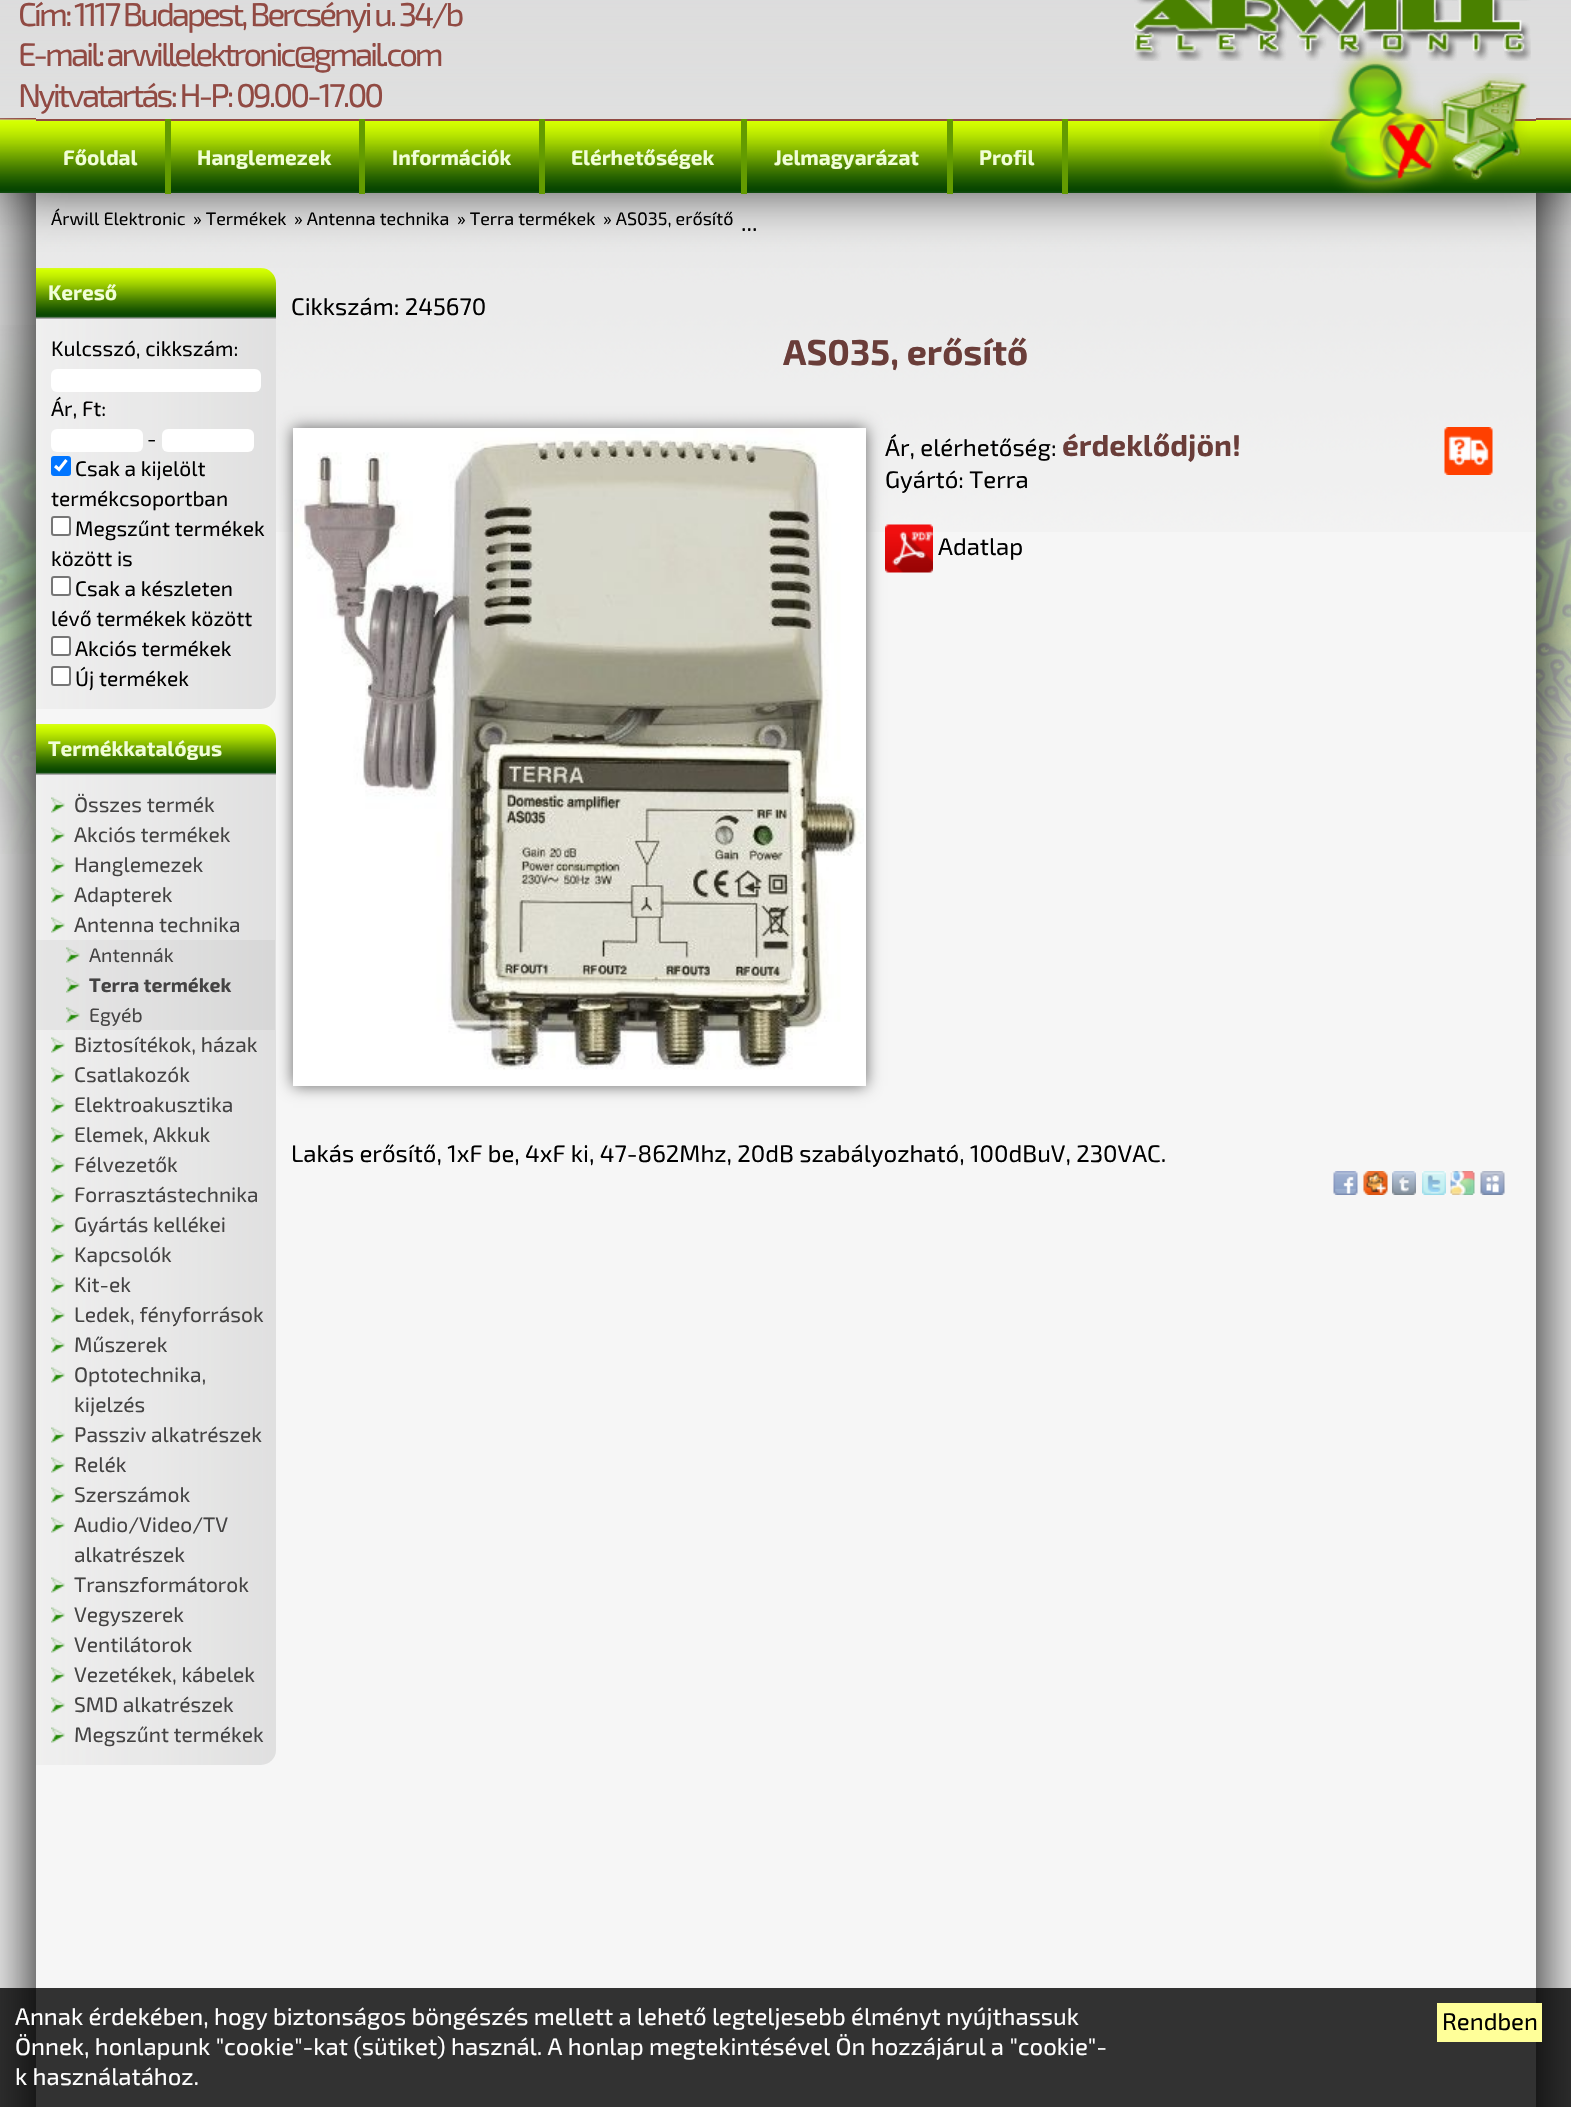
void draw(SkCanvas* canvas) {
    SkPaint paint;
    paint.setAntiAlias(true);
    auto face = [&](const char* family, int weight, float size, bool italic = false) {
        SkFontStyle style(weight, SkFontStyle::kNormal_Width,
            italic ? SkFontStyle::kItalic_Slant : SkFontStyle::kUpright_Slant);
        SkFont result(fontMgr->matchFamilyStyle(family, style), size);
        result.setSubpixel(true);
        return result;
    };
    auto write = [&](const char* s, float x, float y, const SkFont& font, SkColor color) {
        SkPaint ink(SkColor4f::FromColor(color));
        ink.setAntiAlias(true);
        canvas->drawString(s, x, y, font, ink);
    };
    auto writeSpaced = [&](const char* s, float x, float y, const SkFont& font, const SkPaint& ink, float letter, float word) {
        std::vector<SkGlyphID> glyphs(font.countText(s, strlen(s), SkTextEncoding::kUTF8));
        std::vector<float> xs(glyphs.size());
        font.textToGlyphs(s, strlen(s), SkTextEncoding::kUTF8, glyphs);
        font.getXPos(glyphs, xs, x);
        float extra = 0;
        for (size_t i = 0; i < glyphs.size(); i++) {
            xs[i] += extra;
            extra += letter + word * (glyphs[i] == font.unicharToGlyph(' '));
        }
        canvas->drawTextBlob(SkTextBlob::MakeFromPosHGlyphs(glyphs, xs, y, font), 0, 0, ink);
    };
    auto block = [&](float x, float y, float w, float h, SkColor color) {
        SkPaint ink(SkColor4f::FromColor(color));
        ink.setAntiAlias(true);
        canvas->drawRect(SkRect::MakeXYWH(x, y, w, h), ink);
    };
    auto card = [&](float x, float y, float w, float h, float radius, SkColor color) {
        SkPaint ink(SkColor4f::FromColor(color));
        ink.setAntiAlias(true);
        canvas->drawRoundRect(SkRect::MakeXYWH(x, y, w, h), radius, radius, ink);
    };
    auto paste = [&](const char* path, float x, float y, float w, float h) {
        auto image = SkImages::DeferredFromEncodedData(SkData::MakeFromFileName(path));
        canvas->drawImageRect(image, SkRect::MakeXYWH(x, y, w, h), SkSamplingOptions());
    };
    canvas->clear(SkColorSetRGB(242, 242, 242));
    paste("pic1.png", 0, 225, 1571, 100);
    block(0, 193, 1571, 32, SkColorSetRGB(221, 221, 221));
    paste("pic9.png", 0, 325, 36, 529);
    paste("pic26.png", 1536, 318, 35, 538);
    paint.setColor(SK_ColorBLACK);
    paint.setMaskFilter(SkMaskFilter::MakeBlur(kNormal_SkBlurStyle, 30));
    canvas->drawRect(SkRect::MakeXYWH(36, -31, 1500, 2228), paint);
    paint.setMaskFilter(nullptr);
    paste("pic10.png", 36, 193, 1500, 339);
    paste("pic11.png", 36, 268, 240, 51);
    paint.setMaskFilter(SkMaskFilter::MakeBlur(kNormal_SkBlurStyle, 30));
    canvas->drawRect(SkRect::MakeXYWH(0, -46, 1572, 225), paint);
    paint.setMaskFilter(nullptr);
    paste("pic2.png", 0, 0, 1571, 193);
    auto kFont1 = face("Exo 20", 400, 33);
    paint.setColor(SkColorSetRGB(145, 74, 67));
    writeSpaced("Cím: 1117 Budapest, Bercsényi u. 34/b", 18, 26, kFont1, paint, -3, 0);
    writeSpaced("E-mail: arwillelektronic@gmail.com", 18, 66, kFont1, paint, -3.1f, 0);
    writeSpaced("Nyitvatartás: H-P: 09.00-17.00", 18, 107, kFont1, paint, -3, 0);
    paste("pic3.png", 1134, 0, 397, 61);
    paste("pic4.png", 1134, 0, 397, 61);
    paste("pic5.png", 0, 118, 36, 2);
    block(36, 119, 1500, 2, SkColorSetRGB(145, 74, 67));
    paste("pic7.png", 1433, 73, 97, 110);
    paste("pic6.png", 1319, 48, 134, 149);
    paste("pic8.png", 1536, 118, 35, 2);
    block(165, 119, 6, 75, SkColorSetRGB(99, 155, 0));
    auto kFont2 = face("Exo 20", 700, 21);
    write("Főoldal", 63, 165, kFont2, SkColorSetRGB(241, 254, 215));
    block(359, 119, 6, 75, SkColorSetRGB(99, 155, 0));
    write("Hanglemezek", 197, 165, kFont2, SkColorSetRGB(241, 254, 215));
    block(539, 119, 6, 75, SkColorSetRGB(99, 155, 0));
    write("Információk", 392, 165, kFont2, SkColorSetRGB(241, 254, 215));
    block(741, 119, 6, 75, SkColorSetRGB(99, 155, 0));
    write("Elérhetőségek", 571, 165, kFont2, SkColorSetRGB(241, 254, 215));
    block(947, 119, 6, 75, SkColorSetRGB(99, 155, 0));
    write("Jelmagyarázat", 774, 165, kFont2, SkColorSetRGB(241, 254, 215));
    block(1062, 119, 6, 75, SkColorSetRGB(99, 155, 0));
    write("Profil", 979, 165, kFont2, SkColorSetRGB(241, 254, 215));
    block(36, 532, 1500, 1575, SkColorSetRGB(246, 246, 246));
    auto kFont3 = face("Exo 20", 400, 18);
    write("Árwill Elektronic", 51, 225, kFont3, SK_ColorBLACK);
    write("» Termékek", 193, 225, kFont3, SK_ColorBLACK);
    write("» Antenna technika", 294, 225, kFont3, SK_ColorBLACK);
    write("» Terra termékek", 457, 225, kFont3, SK_ColorBLACK);
    write("» AS035, erősítő", 603, 225, kFont3, SK_ColorBLACK);
    auto kFont4 = face("Exo 20", 400, 24);
    write("...", 741, 231, kFont4, SK_ColorBLACK);
    write("Kereső", 48, 300, kFont2, SkColorSetRGB(241, 254, 215));
    paint.setColor(SkColorSetRGB(102, 102, 102));
    paint.setMaskFilter(SkMaskFilter::MakeBlur(kNormal_SkBlurStyle, 7.5f));
    canvas->drawRect(SkRect::MakeXYWH(293, 428, 573, 658), paint);
    paint.setMaskFilter(nullptr);
    paste("pic12.png", 36, 319, 240, 390);
    auto kFont5 = face("Exo 20", 400, 21);
    write("Kulcsszó, cikkszám:", 51, 356, kFont5, SK_ColorBLACK);
    card(51, 369, 210, 23, 6, SK_ColorWHITE);
    write("Ár, Ft:", 51, 416, kFont5, SK_ColorBLACK);
    card(51, 429, 92, 23, 6, SK_ColorWHITE);
    write("-", 147, 446, kFont5, SK_ColorBLACK);
    card(162, 429, 92, 23, 6, SK_ColorWHITE);
    card(51, 456, 20, 20, 3, SkColorSetRGB(0, 117, 255));
    paint.setStyle(SkPaint::kStroke_Style);
    paint.setStrokeWidth(3.1f);
    paint.setColor(SK_ColorWHITE);
    canvas->drawPath(SkPathBuilder().moveTo(55, 466).lineTo(59, 469.5f).lineTo(66.5f, 460).detach(), paint);
    write("Csak a kijelölt", 75, 476, kFont5, SK_ColorBLACK);
    write("termékcsoportban", 51, 506, kFont5, SK_ColorBLACK);
    paint.setStyle(SkPaint::kFill_Style);
    canvas->drawRoundRect(SkRect::MakeXYWH(52, 517, 18, 18), 2, 2, paint);
    paint.setStyle(SkPaint::kStroke_Style);
    paint.setStrokeWidth(2);
    paint.setColor(SkColorSetRGB(118, 118, 118));
    canvas->drawRoundRect(SkRect::MakeXYWH(52, 517, 18, 18), 2, 2, paint);
    write("Megszűnt termékek", 75, 536, kFont5, SK_ColorBLACK);
    write("között is", 51, 566, kFont5, SK_ColorBLACK);
    paint.setStyle(SkPaint::kFill_Style);
    paint.setColor(SK_ColorWHITE);
    canvas->drawRoundRect(SkRect::MakeXYWH(52, 577, 18, 18), 2, 2, paint);
    paint.setStyle(SkPaint::kStroke_Style);
    paint.setColor(SkColorSetRGB(118, 118, 118));
    canvas->drawRoundRect(SkRect::MakeXYWH(52, 577, 18, 18), 2, 2, paint);
    write("Csak a készleten", 75, 596, kFont5, SK_ColorBLACK);
    write("lévő termékek között", 51, 626, kFont5, SK_ColorBLACK);
    paint.setStyle(SkPaint::kFill_Style);
    paint.setColor(SK_ColorWHITE);
    canvas->drawRoundRect(SkRect::MakeXYWH(52, 637, 18, 18), 2, 2, paint);
    paint.setStyle(SkPaint::kStroke_Style);
    paint.setColor(SkColorSetRGB(118, 118, 118));
    canvas->drawRoundRect(SkRect::MakeXYWH(52, 637, 18, 18), 2, 2, paint);
    write("Akciós termékek", 75, 656, kFont5, SK_ColorBLACK);
    paint.setStyle(SkPaint::kFill_Style);
    paint.setColor(SK_ColorWHITE);
    canvas->drawRoundRect(SkRect::MakeXYWH(52, 667, 18, 18), 2, 2, paint);
    paint.setStyle(SkPaint::kStroke_Style);
    paint.setColor(SkColorSetRGB(118, 118, 118));
    canvas->drawRoundRect(SkRect::MakeXYWH(52, 667, 18, 18), 2, 2, paint);
    write("Új termékek", 75, 686, kFont5, SK_ColorBLACK);
    paste("pic13.png", 36, 724, 240, 51);
    write("Termékkatalógus", 48, 756, kFont2, SkColorSetRGB(241, 254, 215));
    paste("pic14.png", 36, 775, 240, 990);
    paste("pic15.png", 51, 797, 14, 16);
    write("Összes termék", 74, 812, kFont5, SkColorSetRGB(68, 67, 67));
    paste("pic15.png", 51, 827, 14, 16);
    write("Akciós termékek", 74, 842, kFont5, SkColorSetRGB(68, 67, 67));
    paste("pic15.png", 51, 857, 14, 16);
    write("Hanglemezek", 74, 872, kFont5, SkColorSetRGB(68, 67, 67));
    paste("pic15.png", 51, 887, 14, 16);
    write("Adapterek", 74, 902, kFont5, SkColorSetRGB(68, 67, 67));
    paste("pic15.png", 51, 917, 14, 16);
    write("Antenna technika", 74, 932, kFont5, SkColorSetRGB(68, 67, 67));
    block(36, 940, 239, 30, SkColorSetARGB(13, 59, 59, 59));
    paste("pic16.png", 66, 947, 14, 16);
    auto kFont6 = face("Exo 20", 400, 19.5f);
    write("Antennák", 89, 962, kFont6, SkColorSetRGB(68, 67, 67));
    block(36, 970, 239, 30, SkColorSetARGB(13, 59, 59, 59));
    paste("pic16.png", 66, 977, 14, 16);
    auto kFont7 = face("Exo 20", 700, 19.5f);
    write("Terra termékek", 89, 992, kFont7, SkColorSetRGB(68, 67, 67));
    block(36, 1000, 239, 30, SkColorSetARGB(13, 59, 59, 59));
    paste("pic16.png", 66, 1007, 14, 16);
    write("Egyéb", 89, 1022, kFont6, SkColorSetRGB(68, 67, 67));
    paste("pic15.png", 51, 1037, 14, 16);
    write("Biztosítékok, házak", 74, 1052, kFont5, SkColorSetRGB(68, 67, 67));
    paste("pic15.png", 51, 1067, 14, 16);
    write("Csatlakozók", 74, 1082, kFont5, SkColorSetRGB(68, 67, 67));
    paste("pic15.png", 51, 1097, 14, 16);
    write("Elektroakusztika", 74, 1112, kFont5, SkColorSetRGB(68, 67, 67));
    paste("pic15.png", 51, 1127, 14, 16);
    write("Elemek, Akkuk", 74, 1142, kFont5, SkColorSetRGB(68, 67, 67));
    paste("pic15.png", 51, 1157, 14, 16);
    write("Félvezetők", 74, 1172, kFont5, SkColorSetRGB(68, 67, 67));
    paste("pic15.png", 51, 1187, 14, 16);
    write("Forrasztástechnika", 74, 1202, kFont5, SkColorSetRGB(68, 67, 67));
    paste("pic15.png", 51, 1217, 14, 16);
    write("Gyártás kellékei", 74, 1232, kFont5, SkColorSetRGB(68, 67, 67));
    paste("pic15.png", 51, 1247, 14, 16);
    write("Kapcsolók", 74, 1262, kFont5, SkColorSetRGB(68, 67, 67));
    paste("pic15.png", 51, 1277, 14, 16);
    write("Kit-ek", 74, 1292, kFont5, SkColorSetRGB(68, 67, 67));
    paste("pic15.png", 51, 1307, 14, 16);
    write("Ledek, fényforrások", 74, 1322, kFont5, SkColorSetRGB(68, 67, 67));
    paste("pic15.png", 51, 1337, 14, 16);
    write("Műszerek", 74, 1352, kFont5, SkColorSetRGB(68, 67, 67));
    paste("pic15.png", 51, 1367, 14, 16);
    write("Optotechnika,", 74, 1382, kFont5, SkColorSetRGB(68, 67, 67));
    write("kijelzés", 74, 1412, kFont5, SkColorSetRGB(68, 67, 67));
    paste("pic15.png", 51, 1427, 14, 16);
    write("Passziv alkatrészek", 74, 1442, kFont5, SkColorSetRGB(68, 67, 67));
    paste("pic15.png", 51, 1457, 14, 16);
    write("Relék", 74, 1472, kFont5, SkColorSetRGB(68, 67, 67));
    paste("pic15.png", 51, 1487, 14, 16);
    write("Szerszámok", 74, 1502, kFont5, SkColorSetRGB(68, 67, 67));
    paste("pic15.png", 51, 1517, 14, 16);
    write("Audio/Video/TV", 74, 1532, kFont5, SkColorSetRGB(68, 67, 67));
    write("alkatrészek", 74, 1562, kFont5, SkColorSetRGB(68, 67, 67));
    paste("pic15.png", 51, 1577, 14, 16);
    write("Transzformátorok", 74, 1592, kFont5, SkColorSetRGB(68, 67, 67));
    paste("pic15.png", 51, 1607, 14, 16);
    write("Vegyszerek", 74, 1622, kFont5, SkColorSetRGB(68, 67, 67));
    paste("pic15.png", 51, 1637, 14, 16);
    write("Ventilátorok", 74, 1652, kFont5, SkColorSetRGB(68, 67, 67));
    paste("pic15.png", 51, 1667, 14, 16);
    write("Vezetékek, kábelek", 74, 1682, kFont5, SkColorSetRGB(68, 67, 67));
    paste("pic15.png", 51, 1697, 14, 16);
    write("SMD alkatrészek", 74, 1712, kFont5, SkColorSetRGB(68, 67, 67));
    paste("pic15.png", 51, 1727, 14, 16);
    write("Megszűnt termékek", 74, 1742, kFont5, SkColorSetRGB(68, 67, 67));
    write("Cikkszám: 245670", 291, 315, kFont4, SK_ColorBLACK);
    auto kFont8 = face("Exo 20", 700, 36);
    write("AS035, erősítő", 783, 365, kFont8, SkColorSetRGB(106, 61, 57));
    paint.setColor(SK_ColorWHITE);
    canvas->drawRect(SkRect::MakeXYWH(294, 429, 571, 656), paint);
    paste("pic17.png", 294, 429, 570, 655);
    write("Ár, elérhetőség:", 885, 456, kFont4, SK_ColorBLACK);
    auto kFont9 = face("Exo 20", 700, 30);
    write("érdeklődjön!", 1062, 456, kFont9, SkColorSetRGB(106, 61, 57));
    write("Gyártó: Terra", 885, 488, kFont4, SK_ColorBLACK);
    paste("pic18.png", 885, 524, 48, 49);
    write("Adatlap", 938, 555, kFont4, SK_ColorBLACK);
    paste("pic19.png", 1444, 427, 49, 48);
    write("Lakás erősítő, 1xF be, 4xF ki, 47-862Mhz, 20dB szabályozható, 100dBuV, 230VAC.", 291, 1162, kFont4, SK_ColorBLACK);
    paste("pic20.png", 1333, 1171, 25, 24);
    paste("pic21.png", 1363, 1171, 25, 24);
    paste("pic22.png", 1392, 1171, 24, 24);
    paste("pic23.png", 1422, 1171, 24, 24);
    paste("pic24.png", 1450, 1171, 25, 24);
    paste("pic25.png", 1480, 1171, 25, 24);
    block(0, 1988, 1571, 119, SkColorSetARGB(204, 0, 0, 0));
    write("Annak érdekében, hogy biztonságos böngészés mellett a lehető legteljesebb élményt nyújthassuk", 15, 2025, kFont4, SK_ColorWHITE);
    write("Önnek, honlapunk \"cookie\"-kat (sütiket) használ. A honlap megtekintésével Ön hozzájárul a \"cookie\"-", 15, 2055, kFont4, SK_ColorWHITE);
    write("k használatához.", 15, 2085, kFont4, SK_ColorWHITE);
    block(1437, 2003, 105, 39, SkColorSetRGB(255, 255, 153));
    write("Rendben", 1442, 2030, kFont4, SK_ColorBLACK);
}
